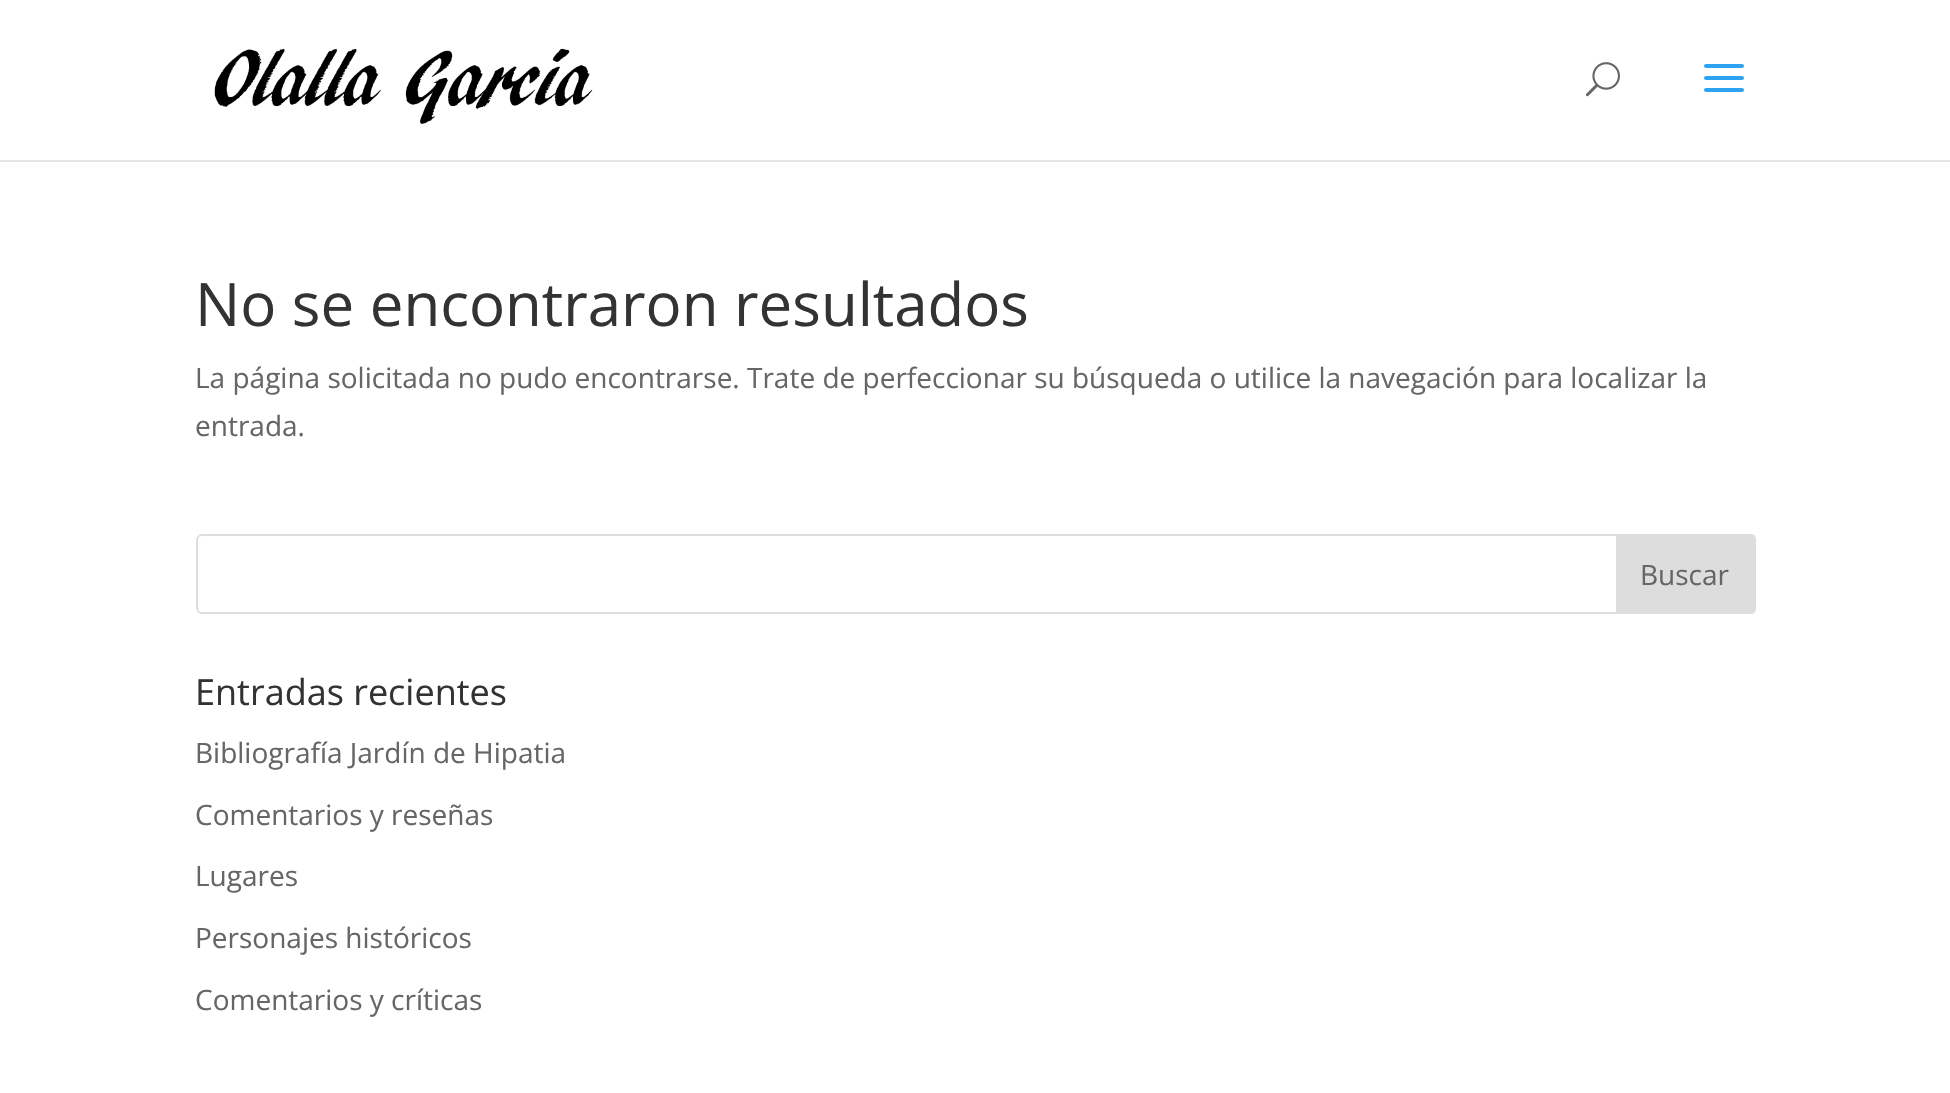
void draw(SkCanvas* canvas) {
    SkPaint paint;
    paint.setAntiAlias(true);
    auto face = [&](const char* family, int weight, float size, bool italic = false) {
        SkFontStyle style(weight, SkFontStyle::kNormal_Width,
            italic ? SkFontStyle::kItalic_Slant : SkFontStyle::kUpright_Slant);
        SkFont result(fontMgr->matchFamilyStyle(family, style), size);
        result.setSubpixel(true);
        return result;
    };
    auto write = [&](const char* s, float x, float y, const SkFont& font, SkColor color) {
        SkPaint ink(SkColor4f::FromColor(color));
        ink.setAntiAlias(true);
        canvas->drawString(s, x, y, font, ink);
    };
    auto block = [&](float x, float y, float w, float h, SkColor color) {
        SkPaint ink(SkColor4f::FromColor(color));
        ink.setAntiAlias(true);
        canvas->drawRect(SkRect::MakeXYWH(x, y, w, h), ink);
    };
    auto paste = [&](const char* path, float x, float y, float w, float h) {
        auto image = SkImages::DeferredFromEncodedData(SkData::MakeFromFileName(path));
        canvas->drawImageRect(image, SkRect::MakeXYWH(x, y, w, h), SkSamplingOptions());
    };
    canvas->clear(SK_ColorWHITE);
    block(0, 160, 1950, 2, SkColorSetRGB(230, 230, 230));
    paste("pic1.png", 214, 48, 379, 76);
    paste("pic2.png", 1585, 62, 35, 35);
    paste("pic3.png", 1704, 64, 40, 28);
    auto kFont1 = face("Open Sans", 400, 60);
    write("No se encontraron resultados", 195, 326, kFont1, SkColorSetRGB(51, 51, 51));
    auto kFont2 = face("Open Sans", 400, 28);
    write("La página solicitada no pudo encontrarse. Trate de perfeccionar su búsqueda o utilice la navegación para localizar la", 195, 388, kFont2, SkColorSetRGB(102, 102, 102));
    write("entrada.", 195, 436, kFont2, SkColorSetRGB(102, 102, 102));
    paint.setStyle(SkPaint::kStroke_Style);
    paint.setStrokeWidth(2);
    paint.setColor(SkColorSetRGB(221, 221, 221));
    canvas->drawRoundRect(SkRect::MakeXYWH(197, 535, 1558, 78), 5, 5, paint);
    paint.setStyle(SkPaint::kFill_Style);
    canvas->drawPath(SkPathBuilder().moveTo(1617, 535).lineTo(1750, 535).cubicTo(1753, 535, 1755, 537, 1755, 540).lineTo(1755, 608).cubicTo(1755, 611, 1753, 613, 1750, 613).lineTo(1617, 613).close().detach(), paint);
    paint.setStyle(SkPaint::kStroke_Style);
    canvas->drawPath(SkPathBuilder().moveTo(1617, 535).lineTo(1750, 535).cubicTo(1753, 535, 1755, 537, 1755, 540).lineTo(1755, 608).cubicTo(1755, 611, 1753, 613, 1750, 613).lineTo(1617, 613).close().detach(), paint);
    write("Buscar", 1640, 585, kFont2, SkColorSetRGB(102, 102, 102));
    auto kFont3 = face("Open Sans", 400, 36);
    write("Entradas recientes", 195, 705, kFont3, SkColorSetRGB(51, 51, 51));
    write("Bibliografía Jardín de Hipatia", 195, 763, kFont2, SkColorSetRGB(102, 102, 102));
    write("Comentarios y reseñas", 195, 825, kFont2, SkColorSetRGB(102, 102, 102));
    write("Lugares", 195, 886, kFont2, SkColorSetRGB(102, 102, 102));
    write("Personajes históricos", 195, 948, kFont2, SkColorSetRGB(102, 102, 102));
    write("Comentarios y críticas", 195, 1010, kFont2, SkColorSetRGB(102, 102, 102));
}
